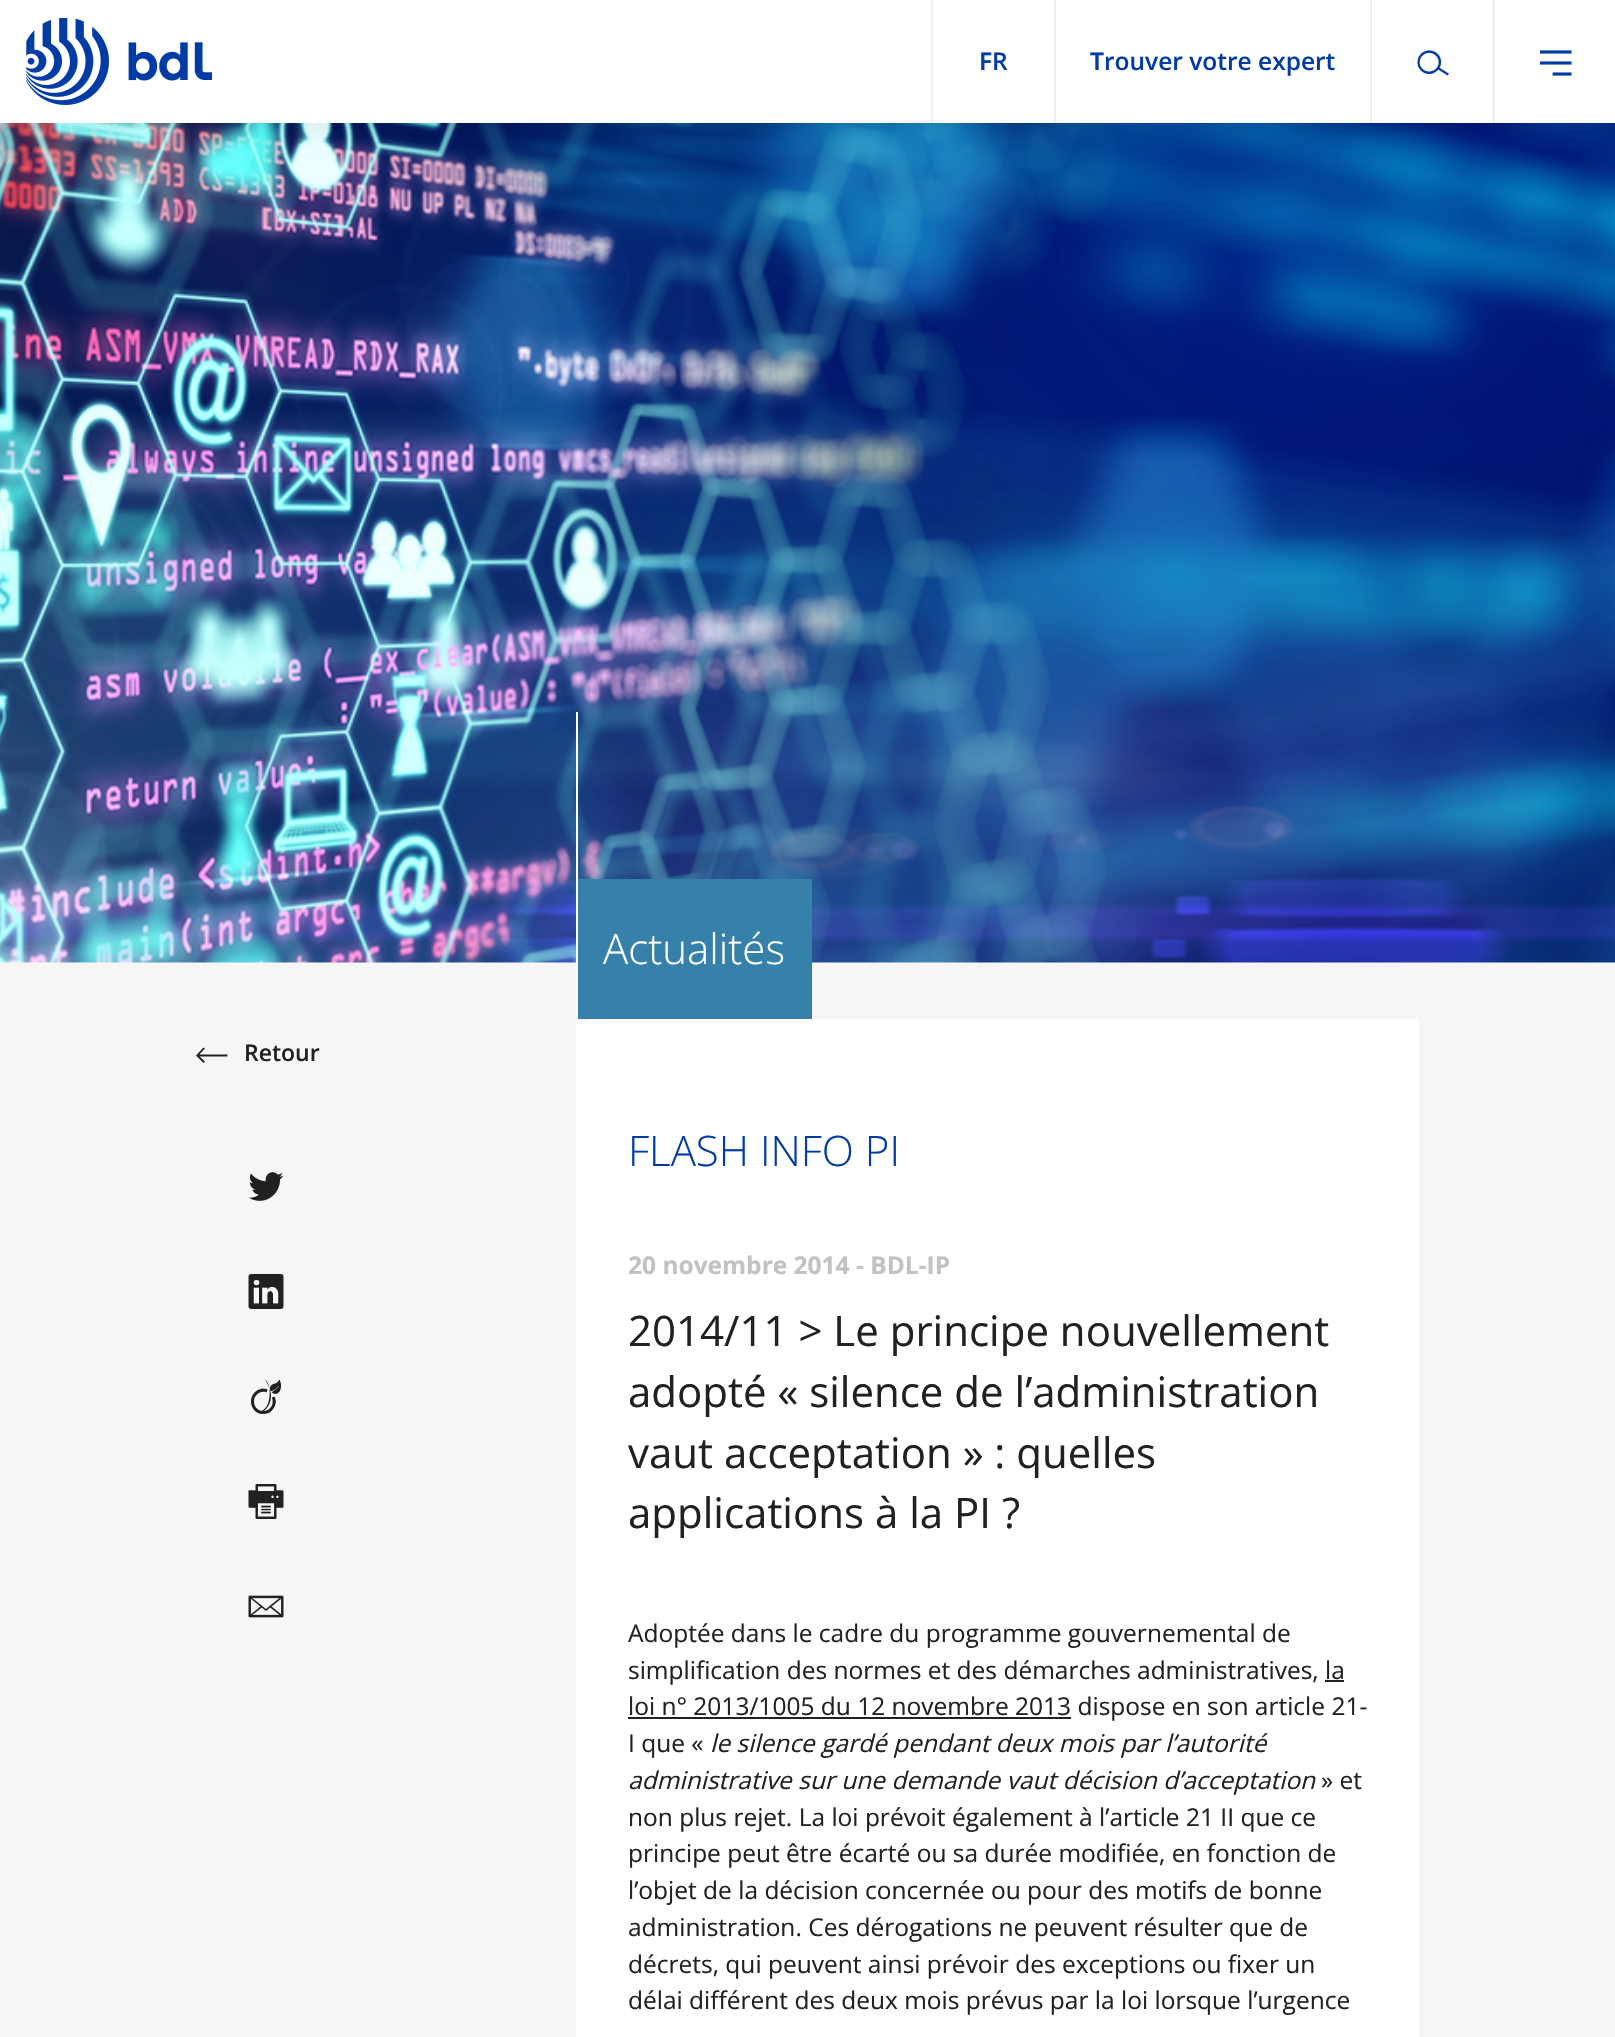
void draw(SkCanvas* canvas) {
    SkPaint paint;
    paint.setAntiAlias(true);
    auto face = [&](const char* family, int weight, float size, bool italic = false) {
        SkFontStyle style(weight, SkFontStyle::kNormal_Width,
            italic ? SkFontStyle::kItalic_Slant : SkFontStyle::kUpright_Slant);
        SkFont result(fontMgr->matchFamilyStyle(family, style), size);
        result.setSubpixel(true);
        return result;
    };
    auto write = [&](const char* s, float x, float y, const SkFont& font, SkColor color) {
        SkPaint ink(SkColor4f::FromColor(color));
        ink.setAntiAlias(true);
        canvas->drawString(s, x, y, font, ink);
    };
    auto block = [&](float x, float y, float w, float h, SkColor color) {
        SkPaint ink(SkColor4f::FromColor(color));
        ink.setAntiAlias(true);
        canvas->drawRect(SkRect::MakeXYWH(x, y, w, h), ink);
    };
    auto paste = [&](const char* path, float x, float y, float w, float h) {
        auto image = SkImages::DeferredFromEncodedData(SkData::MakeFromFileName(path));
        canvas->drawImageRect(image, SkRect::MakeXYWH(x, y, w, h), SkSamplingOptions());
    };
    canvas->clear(SK_ColorWHITE);
    paste("pic4.png", 0, 123, 1615, 840);
    paint.setColor(SkColorSetARGB(26, 0, 0, 0));
    paint.setMaskFilter(SkMaskFilter::MakeBlur(kNormal_SkBlurStyle, 13));
    canvas->drawRect(SkRect::MakeXYWH(0, 2, 1615, 122), paint);
    paint.setMaskFilter(nullptr);
    block(0, 0, 1615, 123, SK_ColorWHITE);
    paste("pic1.png", 26, 18, 186, 87);
    block(931, 0, 2, 123, SkColorSetRGB(239, 239, 239));
    auto kFont1 = face("Noto Sans", 600, 24.5f);
    write("F", 979, 70, kFont1, SkColorSetRGB(1, 60, 166));
    auto kFont2 = face("Open Sans", 600, 24.5f);
    write("R", 992, 70, kFont2, SkColorSetRGB(1, 60, 166));
    block(1054, 0, 2, 123, SkColorSetRGB(239, 239, 239));
    write("T", 1090, 70, kFont1, SkColorSetRGB(1, 60, 166));
    write("rouver votre expert", 1104, 70, kFont2, SkColorSetRGB(1, 60, 166));
    block(1370, 0, 2, 123, SkColorSetRGB(239, 239, 239));
    paste("pic2.png", 1417, 50, 32, 26);
    block(1493, 0, 2, 123, SkColorSetRGB(239, 239, 239));
    paste("pic3.png", 1540, 50, 32, 26);
    block(0, 963, 1615, 1074, SkColorSetRGB(246, 246, 246));
    block(576, 712, 2, 307, SK_ColorWHITE);
    block(578, 879, 234, 140, SkColorSetRGB(54, 129, 170));
    auto kFont3 = face("Open Sans", 300, 42);
    write("Actualités", 603, 964, kFont3, SK_ColorWHITE);
    paint.setColor(SkColorSetRGB(33, 33, 33));
    canvas->drawPath(SkPathBuilder().moveTo(197.5f, 1056.5f).lineTo(197.5f, 1054.5f).lineTo(227.5f, 1054.5f).lineTo(227.5f, 1056.5f).close().moveTo(203.5f, 1063).lineTo(196, 1055.5f).lineTo(203.5f, 1047.5f).lineTo(205, 1048.5f).lineTo(198.5f, 1055.5f).lineTo(205, 1061.5f).close().detach(), paint);
    auto kFont4 = face("Open Sans", 600, 23);
    write("Retour", 244, 1061, kFont4, SkColorSetRGB(33, 33, 33));
    paste("pic5.png", 248, 1172, 36, 29);
    paste("pic6.png", 248, 1274, 36, 35);
    paste("pic7.png", 251, 1379, 31, 35);
    paste("pic8.png", 248, 1484, 36, 35);
    paste("pic9.png", 248, 1595, 36, 23);
    block(576, 1019, 843, 1018, SK_ColorWHITE);
    write("FLASH INFO PI", 628, 1166, kFont3, SkColorSetRGB(1, 60, 166));
    auto kFont5 = face("Open Sans", 700, 24.5f);
    write("20 novembre 2014 - BDL-IP", 628, 1274, kFont5, SkColorSetRGB(194, 194, 194));
    auto kFont6 = face("Open Sans", 400, 42);
    write("2014/11 > Le principe nouvellement", 628, 1346, kFont6, SkColorSetRGB(33, 33, 33));
    write("adopté « silence de l’administration", 628, 1407, kFont6, SkColorSetRGB(33, 33, 33));
    write("vaut acceptation » : quelles", 628, 1468, kFont6, SkColorSetRGB(33, 33, 33));
    write("applications à la PI ?", 628, 1528, kFont6, SkColorSetRGB(33, 33, 33));
    auto kFont7 = face("Open Sans", 400, 24.5f);
    write("Adoptée dans le cadre du programme gouvernemental de", 628, 1642, kFont7, SkColorSetRGB(33, 33, 33));
    write("simplification des normes et des démarches administratives, la", 628, 1679, kFont7, SkColorSetRGB(33, 33, 33));
    block(628, 1717, 443, 2, SkColorSetRGB(33, 33, 33));
    write("loi n° 2013/1005 du 12 novembre 2013 dispose en son article 21-", 628, 1715, kFont7, SkColorSetRGB(33, 33, 33));
    block(1325, 1680, 19, 2, SkColorSetRGB(33, 33, 33));
    write("I que «", 628, 1752, kFont7, SkColorSetRGB(33, 33, 33));
    auto kFont8 = face("Open Sans", 400, 24.5f, true);
    write("le silence gardé pendant deux mois par l’autorité", 710, 1752, kFont8, SkColorSetRGB(33, 33, 33));
    write("administrative sur une demande vaut décision d’acceptation", 628, 1789, kFont8, SkColorSetRGB(33, 33, 33));
    write("» et", 1321, 1789, kFont7, SkColorSetRGB(33, 33, 33));
    write("non plus rejet. La loi prévoit également à l’article 21 II que ce", 628, 1826, kFont7, SkColorSetRGB(33, 33, 33));
    write("principe peut être écarté ou sa durée modifiée, en fonction de", 628, 1862, kFont7, SkColorSetRGB(33, 33, 33));
    write("l’objet de la décision concernée ou pour des motifs de bonne", 628, 1899, kFont7, SkColorSetRGB(33, 33, 33));
    write("administration. Ces dérogations ne peuvent résulter que de", 628, 1936, kFont7, SkColorSetRGB(33, 33, 33));
    write("décrets, qui peuvent ainsi prévoir des exceptions ou fixer un", 628, 1973, kFont7, SkColorSetRGB(33, 33, 33));
    write("délai différent des deux mois prévus par la loi lorsque l’urgence", 628, 2009, kFont7, SkColorSetRGB(33, 33, 33));
}
